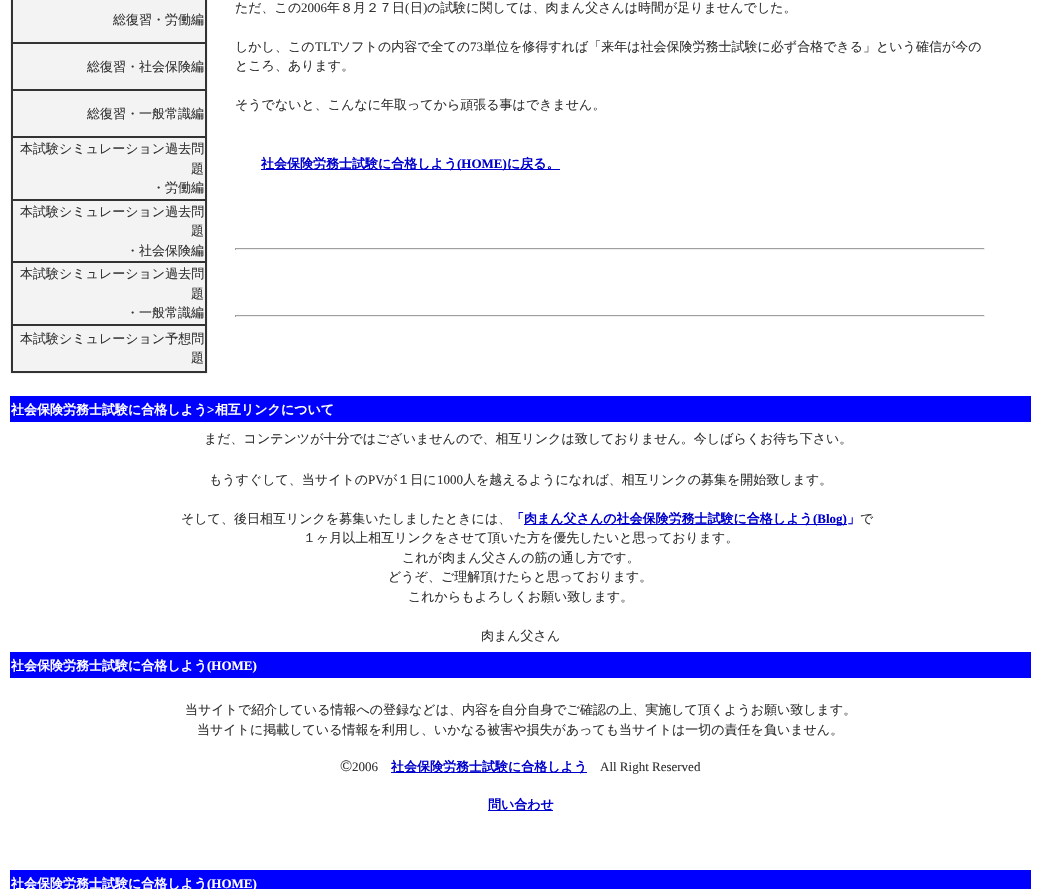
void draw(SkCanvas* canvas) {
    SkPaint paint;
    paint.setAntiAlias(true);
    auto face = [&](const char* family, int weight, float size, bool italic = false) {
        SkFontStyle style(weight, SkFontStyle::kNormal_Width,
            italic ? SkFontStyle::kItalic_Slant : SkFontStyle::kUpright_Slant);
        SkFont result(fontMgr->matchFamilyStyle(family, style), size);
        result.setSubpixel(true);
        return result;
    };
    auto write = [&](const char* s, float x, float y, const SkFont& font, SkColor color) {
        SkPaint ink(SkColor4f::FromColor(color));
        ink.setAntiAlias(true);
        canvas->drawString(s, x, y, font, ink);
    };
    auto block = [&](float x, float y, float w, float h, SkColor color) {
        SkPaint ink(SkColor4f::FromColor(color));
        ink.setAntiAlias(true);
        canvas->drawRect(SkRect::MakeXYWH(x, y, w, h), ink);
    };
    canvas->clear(SK_ColorWHITE);
    block(10, 0, 198, 374, SkColorSetRGB(243, 243, 243));
    block(11, 0, 196, 373, SkColorSetRGB(51, 51, 51));
    block(13, 0, 192, 42, SkColorSetRGB(243, 243, 243));
    auto kFont1 = face("WenQuanYi Zen Hei", 500, 13);
    write("総復習・労働編", 113, 24, kFont1, SkColorSetRGB(51, 51, 51));
    block(13, 44, 192, 45, SkColorSetRGB(243, 243, 243));
    write("総復習・社会保険編", 87, 71, kFont1, SkColorSetRGB(51, 51, 51));
    block(13, 91, 192, 45, SkColorSetRGB(243, 243, 243));
    write("総復習・一般常識編", 87, 118, kFont1, SkColorSetRGB(51, 51, 51));
    block(13, 138, 192, 61, SkColorSetRGB(243, 243, 243));
    write("本試験シミュレーション過去問", 20, 153, kFont1, SkColorSetRGB(51, 51, 51));
    write("題", 191, 173, kFont1, SkColorSetRGB(51, 51, 51));
    write("・労働編", 152, 192, kFont1, SkColorSetRGB(51, 51, 51));
    block(13, 201, 192, 60, SkColorSetRGB(243, 243, 243));
    write("本試験シミュレーション過去問", 20, 216, kFont1, SkColorSetRGB(51, 51, 51));
    write("題", 191, 235, kFont1, SkColorSetRGB(51, 51, 51));
    write("・社会保険編", 126, 255, kFont1, SkColorSetRGB(51, 51, 51));
    block(13, 263, 192, 61, SkColorSetRGB(243, 243, 243));
    write("本試験シミュレーション過去問", 20, 278, kFont1, SkColorSetRGB(51, 51, 51));
    write("題", 191, 298, kFont1, SkColorSetRGB(51, 51, 51));
    write("・一般常識編", 126, 317, kFont1, SkColorSetRGB(51, 51, 51));
    block(13, 326, 192, 45, SkColorSetRGB(243, 243, 243));
    write("本試験シミュレーション予想問", 20, 343, kFont1, SkColorSetRGB(51, 51, 51));
    write("題", 191, 362, kFont1, SkColorSetRGB(51, 51, 51));
    write("ただ、この", 235, 12, kFont1, SkColorSetRGB(51, 51, 51));
    auto kFont2 = face("Liberation Serif", 400, 13);
    write("2006", 301, 12, kFont2, SkColorSetRGB(51, 51, 51));
    write("年８月２７日", 327, 12, kFont1, SkColorSetRGB(51, 51, 51));
    write("(", 405, 12, kFont2, SkColorSetRGB(51, 51, 51));
    write("日", 410, 12, kFont1, SkColorSetRGB(51, 51, 51));
    write(")", 423, 12, kFont2, SkColorSetRGB(51, 51, 51));
    write("の試験に関しては、肉まん父さんは時間が足りませんでした。", 427, 12, kFont1, SkColorSetRGB(51, 51, 51));
    write("しかし、この", 235, 51, kFont1, SkColorSetRGB(51, 51, 51));
    write("TLT", 315, 51, kFont2, SkColorSetRGB(51, 51, 51));
    write("ソフトの内容で全ての", 338, 51, kFont1, SkColorSetRGB(51, 51, 51));
    write("73", 470, 51, kFont2, SkColorSetRGB(51, 51, 51));
    write("単位を修得すれば「来年は社会保険労務士試験に必ず合格できる」という確信が今の", 483, 51, kFont1, SkColorSetRGB(51, 51, 51));
    write("ところ、あります。", 235, 70, kFont1, SkColorSetRGB(51, 51, 51));
    write("そうでないと、こんなに年取ってから頑張る事はできません。", 235, 109, kFont1, SkColorSetRGB(51, 51, 51));
    block(261, 169, 299, 1, SkColorSetRGB(0, 0, 204));
    auto kFont3 = face("WenQuanYi Zen Hei", 700, 13);
    write("社会保険労務士試験に合格しよう", 261, 168, kFont3, SkColorSetRGB(0, 0, 204));
    auto kFont4 = face("Liberation Serif", 700, 13);
    write("(HOME)", 457, 168, kFont4, SkColorSetRGB(0, 0, 204));
    write("に戻る。", 507, 168, kFont3, SkColorSetRGB(0, 0, 204));
    block(235, 248, 750, 1, SkColorSetRGB(159, 159, 159));
    block(984, 248, 1, 2, SkColorSetRGB(238, 238, 238));
    block(235, 249, 750, 1, SkColorSetRGB(238, 238, 238));
    block(235, 248, 1, 2, SkColorSetRGB(159, 159, 159));
    block(235, 315, 750, 1, SkColorSetRGB(159, 159, 159));
    block(984, 315, 1, 2, SkColorSetRGB(238, 238, 238));
    block(235, 316, 750, 1, SkColorSetRGB(238, 238, 238));
    block(235, 315, 1, 2, SkColorSetRGB(159, 159, 159));
    block(10, 396, 1021, 26, SkColorSetRGB(0, 0, 255));
    write("社会保険労務士試験に合格しよう", 11, 414, kFont3, SK_ColorWHITE);
    write(">", 207, 414, kFont4, SK_ColorWHITE);
    write("相互リンクについて", 215, 414, kFont3, SK_ColorWHITE);
    write("まだ、コンテンツが十分ではございませんので、相互リンクは致しておりません。今しばらくお待ち下さい。", 204, 443, kFont1, SkColorSetRGB(51, 51, 51));
    write("もうすぐして、当サイトの", 209, 484, kFont1, SkColorSetRGB(51, 51, 51));
    write("PV", 368, 484, kFont2, SkColorSetRGB(51, 51, 51));
    write("が１日に", 384, 484, kFont1, SkColorSetRGB(51, 51, 51));
    write("1000", 437, 484, kFont2, SkColorSetRGB(51, 51, 51));
    write("人を越えるようになれば、相互リンクの募集を開始致します。", 463, 484, kFont1, SkColorSetRGB(51, 51, 51));
    write("そして、後日相互リンクを募集いたしましたときには、", 181, 523, kFont1, SkColorSetRGB(51, 51, 51));
    write("「", 511, 523, kFont3, SkColorSetRGB(0, 0, 204));
    block(524, 524, 323, 1, SkColorSetRGB(0, 0, 204));
    write("肉まん父さんの社会保険労務士試験に合格しよう", 524, 523, kFont3, SkColorSetRGB(0, 0, 204));
    write("(Blog)", 813, 523, kFont4, SkColorSetRGB(0, 0, 204));
    write("」", 847, 523, kFont3, SkColorSetRGB(0, 0, 204));
    write("で", 860, 523, kFont1, SkColorSetRGB(51, 51, 51));
    write("１ヶ月以上相互リンクをさせて頂いた方を優先したいと思っております。", 303, 542, kFont1, SkColorSetRGB(51, 51, 51));
    write("これが肉まん父さんの筋の通し方です。", 402, 562, kFont1, SkColorSetRGB(51, 51, 51));
    write("どうぞ、ご理解頂けたらと思っております。", 388, 581, kFont1, SkColorSetRGB(51, 51, 51));
    write("これからもよろしくお願い致します。", 408, 601, kFont1, SkColorSetRGB(51, 51, 51));
    write("肉まん父さん", 481, 640, kFont1, SkColorSetRGB(51, 51, 51));
    block(10, 652, 1021, 26, SkColorSetRGB(0, 0, 255));
    write("社会保険労務士試験に合格しよう", 11, 670, kFont3, SK_ColorWHITE);
    write("(HOME)", 207, 670, kFont4, SK_ColorWHITE);
    write("当サイトで紹介している情報への登録などは、内容を自分自身でご確認の上、実施して頂くようお願い致します。", 185, 714, kFont1, SkColorSetRGB(51, 51, 51));
    write("当サイトに掲載している情報を利用し、いかなる被害や損失があっても当サイトは一切の責任を負いません。", 197, 734, kFont1, SkColorSetRGB(51, 51, 51));
    auto kFont5 = face("Liberation Serif", 400, 16);
    write("©", 340, 771, kFont5, SkColorSetRGB(51, 51, 51));
    write("2006", 352, 771, kFont2, SkColorSetRGB(51, 51, 51));
    block(391, 772, 196, 1, SkColorSetRGB(0, 0, 204));
    write("社会保険労務士試験に合格しよう", 391, 771, kFont3, SkColorSetRGB(0, 0, 204));
    write("All Right Reserved", 600, 771, kFont2, SkColorSetRGB(51, 51, 51));
    block(488, 810, 65, 1, SkColorSetRGB(0, 0, 204));
    write("問い合わせ", 488, 809, kFont3, SkColorSetRGB(0, 0, 204));
    block(10, 870, 1021, 19, SkColorSetRGB(0, 0, 255));
    write("社会保険労務士試験に合格しよう", 11, 888, kFont3, SK_ColorWHITE);
    write("(HOME)", 207, 888, kFont4, SK_ColorWHITE);
}
